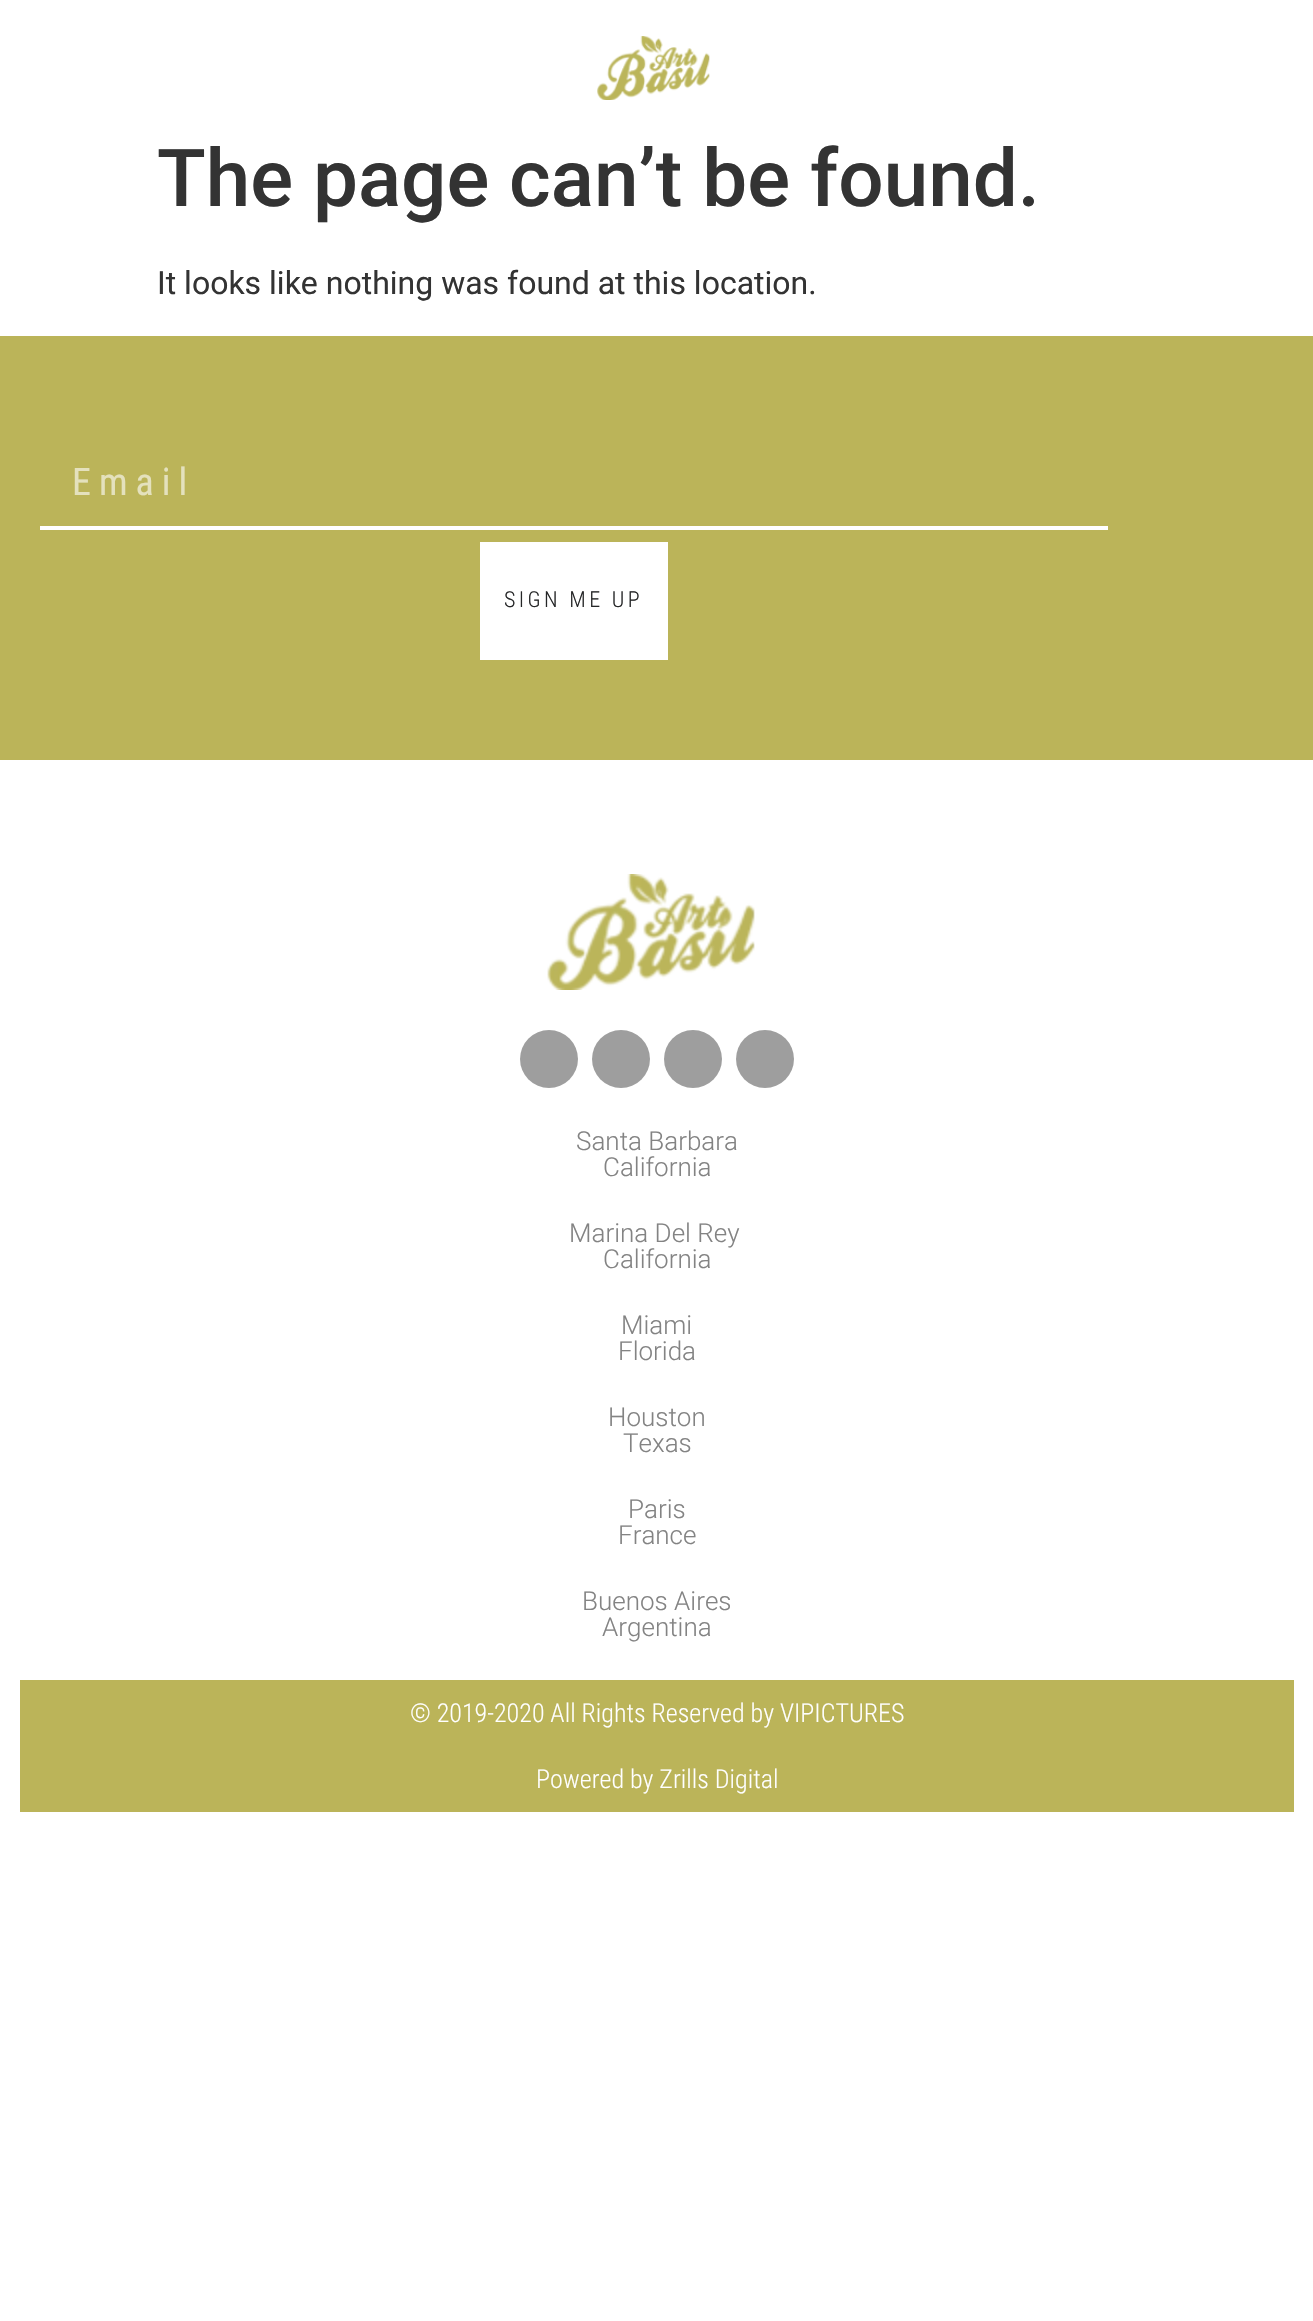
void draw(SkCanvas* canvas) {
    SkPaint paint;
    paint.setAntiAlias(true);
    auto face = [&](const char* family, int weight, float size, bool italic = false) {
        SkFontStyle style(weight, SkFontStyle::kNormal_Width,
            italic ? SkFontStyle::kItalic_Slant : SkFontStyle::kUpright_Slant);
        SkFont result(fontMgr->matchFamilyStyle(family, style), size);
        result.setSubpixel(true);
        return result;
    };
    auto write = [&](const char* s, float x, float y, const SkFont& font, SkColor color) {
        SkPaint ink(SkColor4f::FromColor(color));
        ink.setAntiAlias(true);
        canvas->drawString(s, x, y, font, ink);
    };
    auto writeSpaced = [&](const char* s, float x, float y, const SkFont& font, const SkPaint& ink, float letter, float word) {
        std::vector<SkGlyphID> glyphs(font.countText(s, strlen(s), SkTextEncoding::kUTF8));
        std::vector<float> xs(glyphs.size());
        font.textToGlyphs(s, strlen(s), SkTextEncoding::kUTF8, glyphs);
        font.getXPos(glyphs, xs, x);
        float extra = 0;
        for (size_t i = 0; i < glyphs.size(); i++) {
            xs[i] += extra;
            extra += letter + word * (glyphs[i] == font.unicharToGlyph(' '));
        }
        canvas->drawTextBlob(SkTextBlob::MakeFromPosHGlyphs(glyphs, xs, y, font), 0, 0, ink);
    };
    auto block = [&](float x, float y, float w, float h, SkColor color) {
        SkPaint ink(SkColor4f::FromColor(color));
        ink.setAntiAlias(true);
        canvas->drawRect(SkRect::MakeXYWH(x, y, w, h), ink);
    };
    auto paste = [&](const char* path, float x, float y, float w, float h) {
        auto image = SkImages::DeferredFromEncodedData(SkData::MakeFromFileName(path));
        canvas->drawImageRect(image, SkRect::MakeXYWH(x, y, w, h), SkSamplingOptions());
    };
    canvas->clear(SK_ColorWHITE);
    paste("pic1.png", 597, 36, 113, 64);
    auto kFont1 = face("Roboto", 500, 80);
    write("The page can’t be found.", 157, 206, kFont1, SkColorSetRGB(51, 51, 51));
    auto kFont2 = face("Roboto", 400, 32);
    write("It looks like nothing was found at this location.", 157, 294, kFont2, SkColorSetRGB(51, 51, 51));
    block(0, 336, 1313, 424, SkColorSetRGB(187, 180, 89));
    block(40, 526, 1068, 4, SK_ColorWHITE);
    auto kFont3 = face("Roboto Condensed", 400, 38);
    paint.setColor(SkColorSetRGB(228, 225, 189));
    writeSpaced("Email", 72, 495, kFont3, paint, 8, 0);
    block(480, 542, 188, 118, SK_ColorWHITE);
    auto kFont4 = face("Roboto Condensed", 300, 22);
    paint.setColor(SkColorSetRGB(37, 38, 39));
    writeSpaced("SIGN ME UP", 504, 607, kFont4, paint, 3.4f, 0);
    paste("pic2.png", 547, 874, 208, 116);
    paint.setColor(SkColorSetRGB(158, 158, 158));
    canvas->drawCircle(549, 1059, 29, paint);
    canvas->drawCircle(621, 1059, 29, paint);
    canvas->drawCircle(693, 1059, 29, paint);
    canvas->drawCircle(765, 1059, 29, paint);
    auto kFont5 = face("Roboto", 300, 26);
    write("Santa Barbara", 576, 1150, kFont5, SkColorSetRGB(131, 131, 131));
    write("California", 603, 1176, kFont5, SkColorSetRGB(131, 131, 131));
    write("Marina Del Rey", 569, 1242, kFont5, SkColorSetRGB(131, 131, 131));
    write("California", 603, 1268, kFont5, SkColorSetRGB(131, 131, 131));
    write("Miami", 621, 1334, kFont5, SkColorSetRGB(131, 131, 131));
    write("Florida", 618, 1360, kFont5, SkColorSetRGB(131, 131, 131));
    write("Houston", 608, 1426, kFont5, SkColorSetRGB(131, 131, 131));
    write("Texas", 623, 1452, kFont5, SkColorSetRGB(131, 131, 131));
    write("Paris", 628, 1518, kFont5, SkColorSetRGB(131, 131, 131));
    write("France", 618, 1544, kFont5, SkColorSetRGB(131, 131, 131));
    write("Buenos Aires", 582, 1610, kFont5, SkColorSetRGB(131, 131, 131));
    write("Argentina", 602, 1636, kFont5, SkColorSetRGB(131, 131, 131));
    block(20, 1680, 1274, 132, SkColorSetRGB(187, 180, 89));
    auto kFont6 = face("Roboto Condensed", 300, 26);
    write("© 2019-2020 All Rights Reserved by VIPICTURES", 410, 1722, kFont6, SK_ColorWHITE);
    write("Powered by Zrills Digital", 536, 1788, kFont6, SK_ColorWHITE);
}
